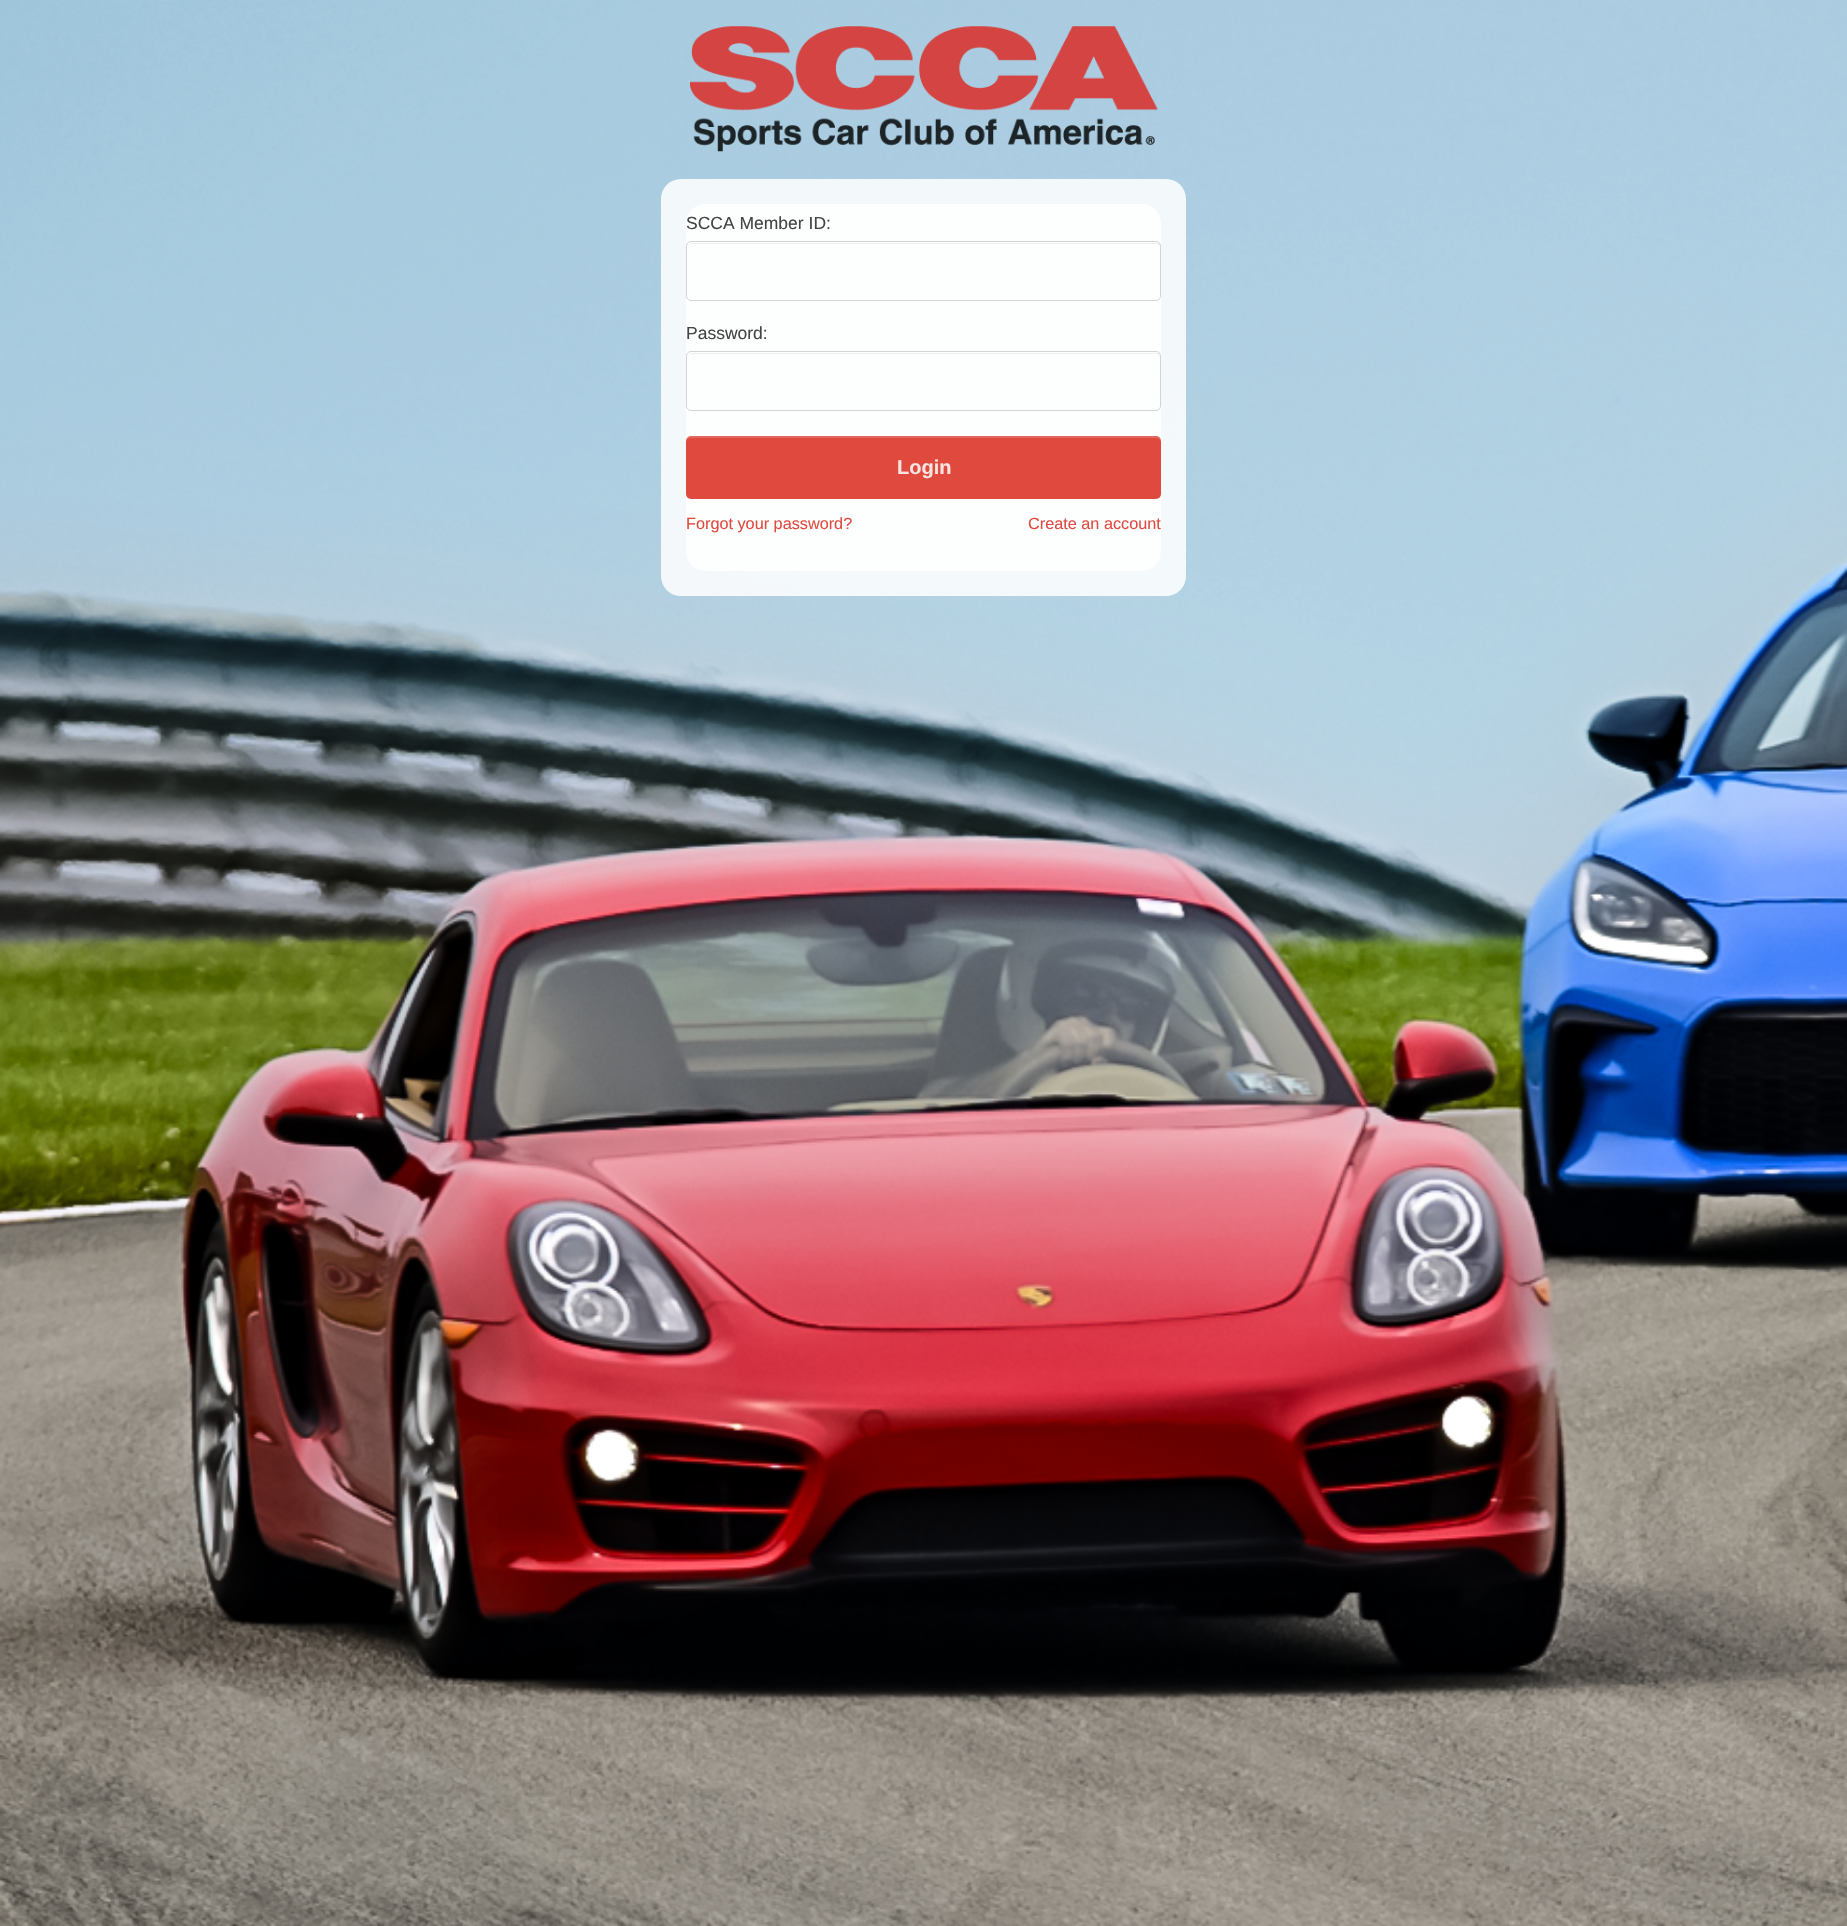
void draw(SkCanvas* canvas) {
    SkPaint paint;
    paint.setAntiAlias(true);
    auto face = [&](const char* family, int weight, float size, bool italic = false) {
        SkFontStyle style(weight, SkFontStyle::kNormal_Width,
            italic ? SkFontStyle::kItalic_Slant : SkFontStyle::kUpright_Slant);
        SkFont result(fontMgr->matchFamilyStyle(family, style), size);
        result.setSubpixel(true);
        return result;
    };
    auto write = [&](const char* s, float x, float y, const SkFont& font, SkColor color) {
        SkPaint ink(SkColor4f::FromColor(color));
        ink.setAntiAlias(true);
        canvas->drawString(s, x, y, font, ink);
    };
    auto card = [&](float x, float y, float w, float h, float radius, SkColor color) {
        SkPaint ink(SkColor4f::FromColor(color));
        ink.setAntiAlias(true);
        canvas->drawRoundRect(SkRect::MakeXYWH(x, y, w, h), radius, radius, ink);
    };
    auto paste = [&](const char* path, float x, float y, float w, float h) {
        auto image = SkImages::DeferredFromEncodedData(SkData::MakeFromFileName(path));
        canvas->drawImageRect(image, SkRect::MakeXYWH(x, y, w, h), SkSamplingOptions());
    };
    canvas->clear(SK_ColorWHITE);
    paste("pic1.png", 0, 0, 1847, 1926);
    paste("pic2.png", 690, 26, 468, 126);
    card(661, 179, 525, 417, 20, SkColorSetARGB(217, 255, 255, 255));
    card(686, 204, 475, 367, 19, SkColorSetRGB(253, 254, 254));
    auto kFont1 = face("Liberation Sans", 400, 17.5f);
    write("SCCA Member ID:", 686, 229, kFont1, SkColorSetRGB(67, 67, 67));
    paint.setColor(SkColorSetRGB(239, 239, 239));
    canvas->drawPath(SkPathBuilder().moveTo(691, 244).lineTo(1156, 244).cubicTo(1158, 244, 1160, 245, 1160, 248).cubicTo(1160, 245, 1159, 243, 1156, 243).lineTo(692, 243).cubicTo(689, 243, 688, 245, 688, 248).cubicTo(688, 245, 689, 244, 691, 244).close().detach(), paint);
    paint.setStyle(SkPaint::kStroke_Style);
    paint.setStrokeWidth(1);
    paint.setColor(SkColorSetRGB(212, 212, 212));
    canvas->drawRoundRect(SkRect::MakeXYWH(686.5f, 241.5f, 474, 59), 4.5f, 4.5f, paint);
    write("Password:", 686, 339, kFont1, SkColorSetRGB(67, 67, 67));
    paint.setStyle(SkPaint::kFill_Style);
    paint.setColor(SkColorSetRGB(239, 239, 239));
    canvas->drawPath(SkPathBuilder().moveTo(691, 354).lineTo(1156, 354).cubicTo(1158, 354, 1160, 355, 1160, 358).cubicTo(1160, 355, 1159, 353, 1156, 353).lineTo(692, 353).cubicTo(689, 353, 688, 355, 688, 358).cubicTo(688, 355, 689, 354, 691, 354).close().detach(), paint);
    paint.setStyle(SkPaint::kStroke_Style);
    paint.setColor(SkColorSetRGB(212, 212, 212));
    canvas->drawRoundRect(SkRect::MakeXYWH(686.5f, 351.5f, 474, 59), 4.5f, 4.5f, paint);
    card(686, 436, 475, 63, 5, SkColorSetARGB(217, 218, 41, 28));
    paint.setStyle(SkPaint::kFill_Style);
    paint.setColor(SkColorSetARGB(43, 255, 255, 255));
    canvas->drawPath(SkPathBuilder().moveTo(691, 438).lineTo(1156, 438).cubicTo(1159, 438, 1161, 440, 1161, 442).lineTo(1161, 441).cubicTo(1161, 438, 1159, 436, 1156, 436).lineTo(691, 436).cubicTo(688, 436, 686, 438, 686, 441).lineTo(686, 442).cubicTo(686, 440, 688, 438, 691, 438).close().detach(), paint);
    auto kFont2 = face("Liberation Sans", 700, 20);
    write("Login", 897, 474, kFont2, SkColorSetRGB(250, 228, 226));
    auto kFont3 = face("Liberation Sans", 400, 16.25f);
    write("Forgot your password?", 686, 529, kFont3, SkColorSetRGB(223, 73, 62));
    write("Create an account", 1028, 529, kFont3, SkColorSetRGB(223, 73, 62));
}
